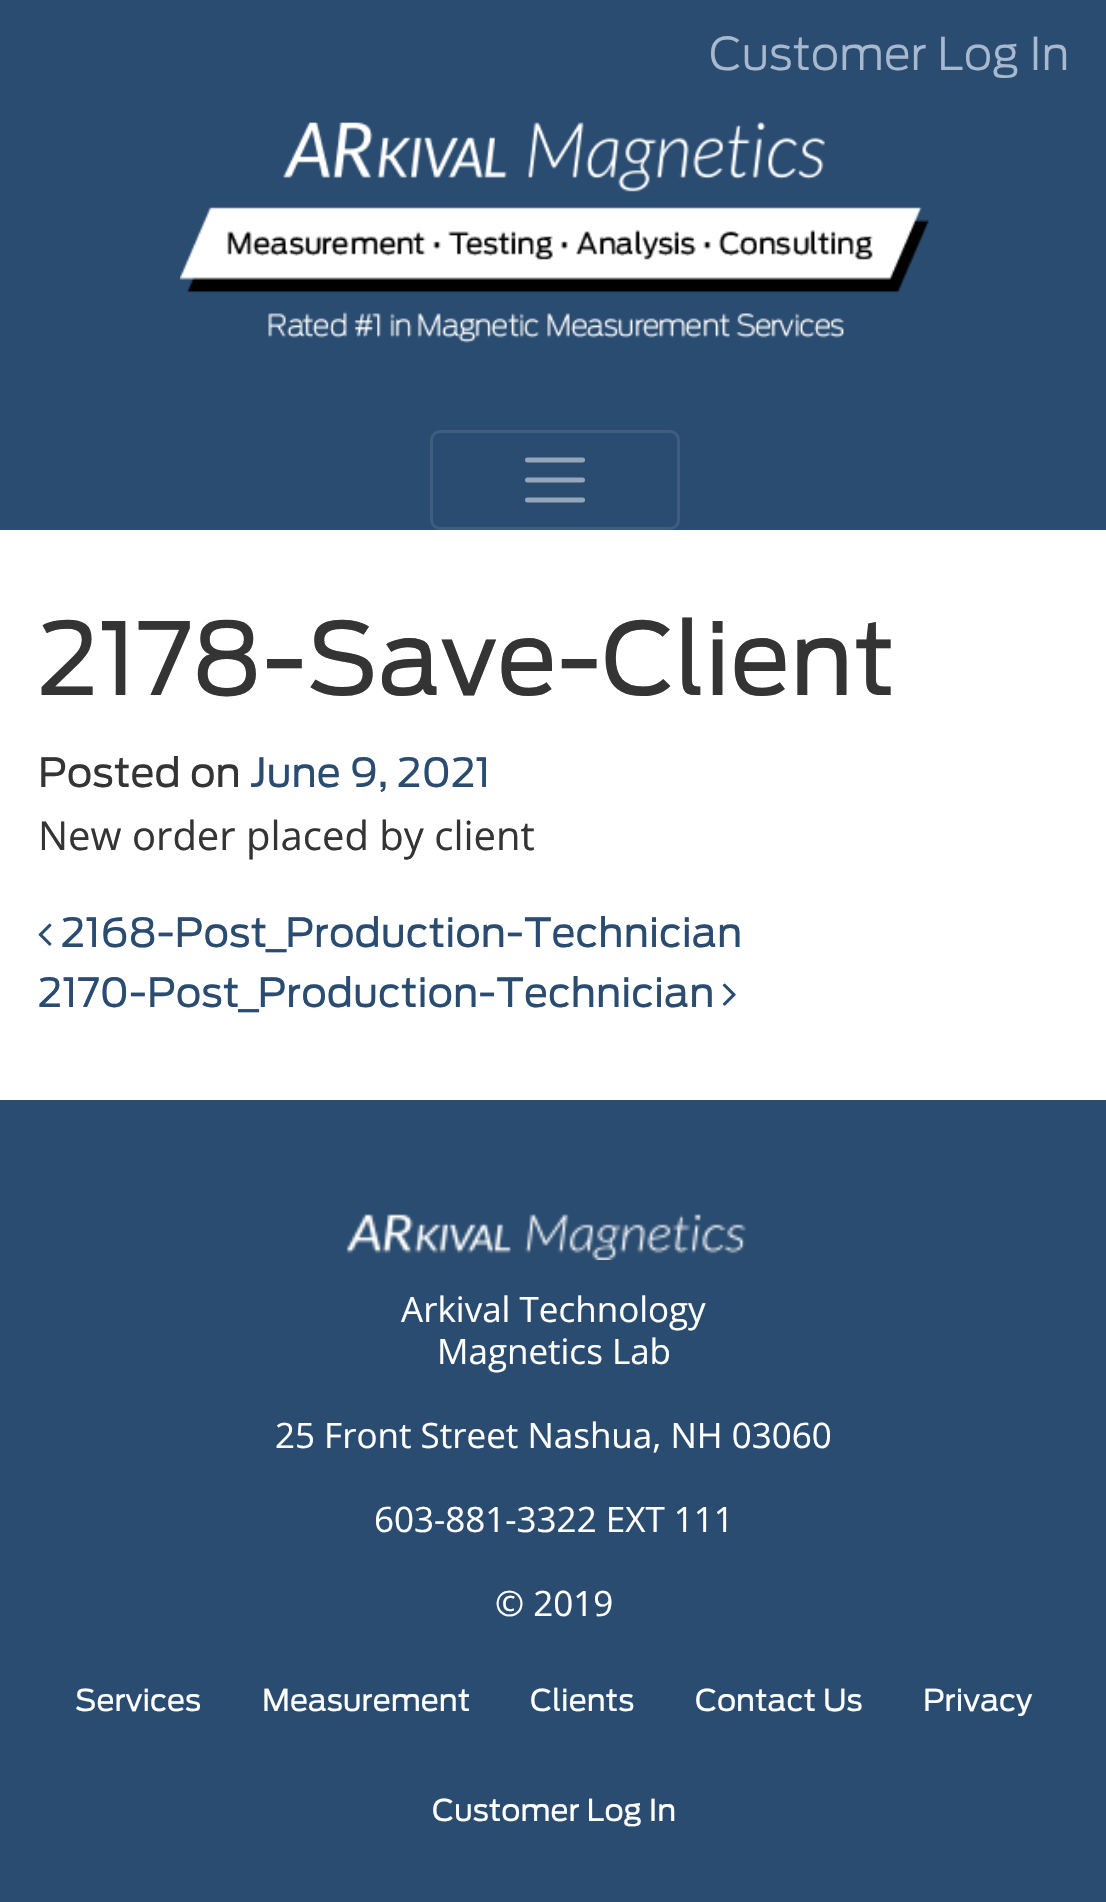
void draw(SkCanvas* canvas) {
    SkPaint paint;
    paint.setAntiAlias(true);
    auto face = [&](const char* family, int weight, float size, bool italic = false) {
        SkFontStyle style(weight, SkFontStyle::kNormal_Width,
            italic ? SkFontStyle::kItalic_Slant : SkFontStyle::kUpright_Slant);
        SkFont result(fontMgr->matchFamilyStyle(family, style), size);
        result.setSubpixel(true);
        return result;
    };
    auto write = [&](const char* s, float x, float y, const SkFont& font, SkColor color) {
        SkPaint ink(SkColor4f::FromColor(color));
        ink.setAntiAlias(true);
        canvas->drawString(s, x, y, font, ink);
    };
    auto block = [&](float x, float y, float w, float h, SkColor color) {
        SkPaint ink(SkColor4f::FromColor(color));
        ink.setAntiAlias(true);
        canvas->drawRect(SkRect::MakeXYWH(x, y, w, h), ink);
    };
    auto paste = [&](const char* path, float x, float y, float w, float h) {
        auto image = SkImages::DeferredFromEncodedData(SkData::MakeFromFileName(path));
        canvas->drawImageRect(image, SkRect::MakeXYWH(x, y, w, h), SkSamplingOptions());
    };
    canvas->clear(SK_ColorWHITE);
    block(0, 0, 1106, 530, SkColorSetRGB(42, 76, 112));
    paste("pic1.png", 180, 122, 749, 221);
    auto kFont1 = face("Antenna", 300, 45);
    write("Customer Log In", 709, 70, kFont1, SkColorSetRGB(168, 184, 206));
    paint.setStyle(SkPaint::kStroke_Style);
    paint.setStrokeWidth(3);
    paint.setColor(SkColorSetRGB(63, 94, 126));
    canvas->drawRoundRect(SkRect::MakeXYWH(431.5f, 431.5f, 247, 97), 8.5f, 8.5f, paint);
    paint.setStrokeWidth(5);
    paint.setStrokeCap(SkPaint::kRound_Cap);
    paint.setColor(SkColorSetRGB(149, 166, 184));
    canvas->drawPath(SkPathBuilder().moveTo(527.5f, 460).lineTo(582.5f, 460).moveTo(527.5f, 480).lineTo(582.5f, 480).moveTo(527.5f, 500).lineTo(582.5f, 500).detach(), paint);
    auto kFont2 = face("Antenna", 400, 100);
    write("2178-Save-Client", 38, 695, kFont2, SkColorSetRGB(52, 52, 52));
    auto kFont3 = face("Antenna", 400, 40);
    write("Posted on", 38, 787, kFont3, SkColorSetRGB(52, 52, 52));
    write("June 9, 2021", 250, 787, kFont3, SkColorSetRGB(42, 76, 112));
    auto kFont4 = face("Open Sans", 400, 40);
    write("New order placed by client", 38, 850, kFont4, SkColorSetRGB(52, 52, 52));
    paste("pic2.png", 38, 923, 14, 23);
    write("2168-Post_Production-Technician", 61, 947, kFont3, SkColorSetRGB(42, 76, 112));
    write("2170-Post_Production-Technician", 38, 1007, kFont3, SkColorSetRGB(42, 76, 112));
    paste("pic3.png", 722, 983, 14, 23);
    block(0, 1100, 1106, 802, SkColorSetRGB(42, 76, 112));
    paste("pic4.png", 346, 1214, 400, 46);
    auto kFont5 = face("Open Sans", 400, 35);
    write("Arkival Technology", 401, 1322, kFont5, SK_ColorWHITE);
    write("Magnetics Lab", 437, 1364, kFont5, SK_ColorWHITE);
    write("25 Front Street Nashua, NH 03060", 275, 1448, kFont5, SK_ColorWHITE);
    write("603-881-3322 EXT 111", 374, 1532, kFont5, SK_ColorWHITE);
    write("© 2019", 495, 1616, kFont5, SK_ColorWHITE);
    auto kFont6 = face("Antenna", 400, 30);
    write("Services", 75, 1711, kFont6, SK_ColorWHITE);
    write("Measurement", 262, 1711, kFont6, SK_ColorWHITE);
    write("Clients", 530, 1711, kFont6, SK_ColorWHITE);
    write("Contact Us", 695, 1711, kFont6, SK_ColorWHITE);
    write("Privacy", 923, 1711, kFont6, SK_ColorWHITE);
    write("Customer Log In", 432, 1821, kFont6, SK_ColorWHITE);
}
